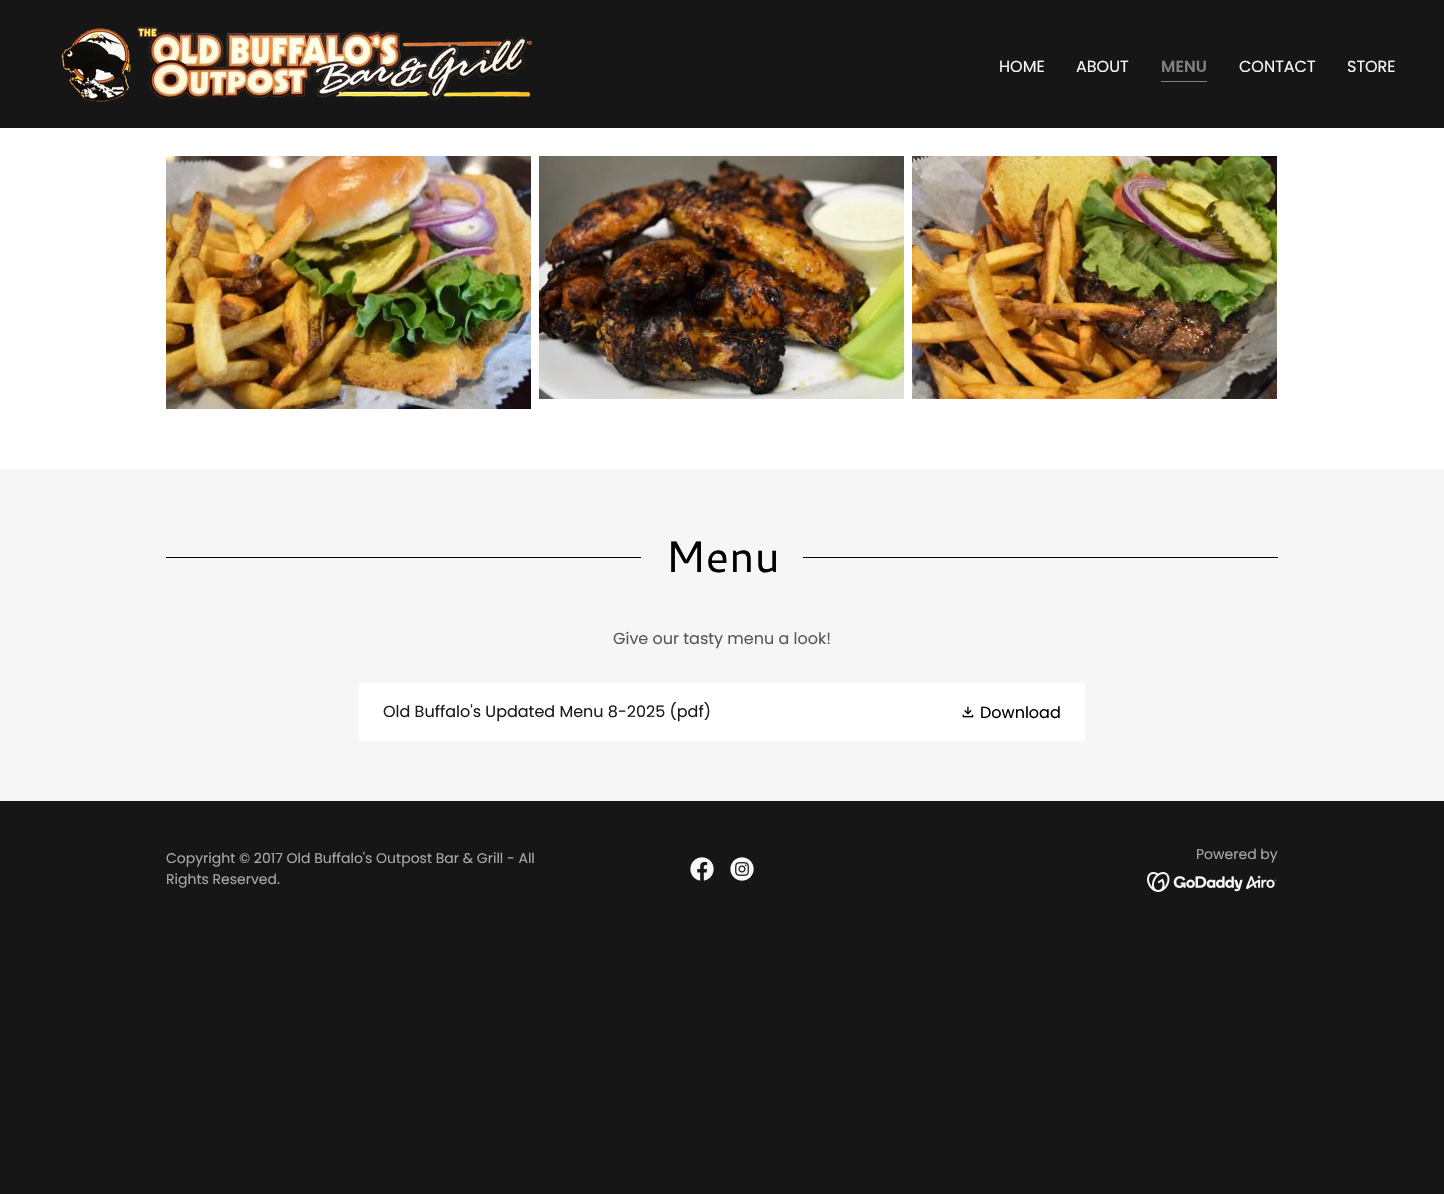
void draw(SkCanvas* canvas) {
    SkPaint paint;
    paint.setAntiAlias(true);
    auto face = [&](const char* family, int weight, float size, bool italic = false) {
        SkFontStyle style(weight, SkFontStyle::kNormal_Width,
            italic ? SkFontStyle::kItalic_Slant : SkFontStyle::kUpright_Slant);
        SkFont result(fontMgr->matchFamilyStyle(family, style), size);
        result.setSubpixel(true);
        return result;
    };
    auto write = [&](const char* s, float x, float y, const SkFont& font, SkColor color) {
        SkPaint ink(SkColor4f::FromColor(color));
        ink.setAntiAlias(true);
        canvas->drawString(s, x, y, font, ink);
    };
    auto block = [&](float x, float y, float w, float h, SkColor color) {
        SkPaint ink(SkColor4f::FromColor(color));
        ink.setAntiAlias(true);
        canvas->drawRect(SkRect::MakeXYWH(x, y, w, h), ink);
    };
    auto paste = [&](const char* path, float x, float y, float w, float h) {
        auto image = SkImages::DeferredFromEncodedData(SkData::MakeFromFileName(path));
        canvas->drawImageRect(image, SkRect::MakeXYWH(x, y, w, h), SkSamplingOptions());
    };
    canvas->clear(SkColorSetRGB(22, 22, 22));
    paste("pic1.png", 61, 27, 471, 75);
    auto kFont1 = face("Poppins", 400, 16);
    write("HOME", 999, 72, kFont1, SkColorSetRGB(247, 247, 247));
    write("ABOUT", 1076, 72, kFont1, SkColorSetRGB(247, 247, 247));
    block(1161, 81, 46, 1, SkColorSetRGB(127, 128, 128));
    auto kFont2 = face("Poppins", 600, 16);
    write("MENU", 1161, 72, kFont2, SkColorSetRGB(127, 128, 128));
    write("CONTACT", 1239, 72, kFont1, SkColorSetRGB(247, 247, 247));
    write("STORE", 1347, 72, kFont1, SkColorSetRGB(247, 247, 247));
    block(0, 128, 1444, 341, SK_ColorWHITE);
    paste("pic2.png", 166, 156, 365, 253);
    paste("pic3.png", 539, 156, 365, 243);
    paste("pic4.png", 912, 156, 365, 243);
    block(0, 469, 1444, 332, SkColorSetRGB(246, 246, 246));
    block(166, 557, 475, 1, SK_ColorBLACK);
    auto kFont3 = face("Cantarell", 400, 44);
    write("Menu", 665, 572, kFont3, SK_ColorBLACK);
    block(803, 557, 475, 1, SK_ColorBLACK);
    write("Give our tasty menu a look!", 613, 644, kFont1, SkColorSetRGB(87, 87, 87));
    block(359, 683, 726, 58, SK_ColorWHITE);
    write("Old Buffalo's Updated Menu 8-2025 (pdf)", 383, 717, kFont1, SkColorSetRGB(27, 27, 27));
    paste("pic5.png", 962, 706, 12, 12);
    write("Download", 980, 718, kFont1, SK_ColorBLACK);
    auto kFont4 = face("Poppins", 400, 14);
    write("Copyright © 2017 Old Buffalo's Outpost Bar & Grill - All", 166, 863, kFont4, SkColorSetRGB(169, 169, 169));
    write("Rights Reserved.", 166, 884, kFont4, SkColorSetRGB(169, 169, 169));
    paste("pic6.png", 690, 857, 24, 24);
    paste("pic7.png", 730, 857, 24, 24);
    write("Powered by", 1196, 859, kFont4, SkColorSetRGB(169, 169, 169));
    paste("pic8.png", 1147, 872, 130, 20);
}
